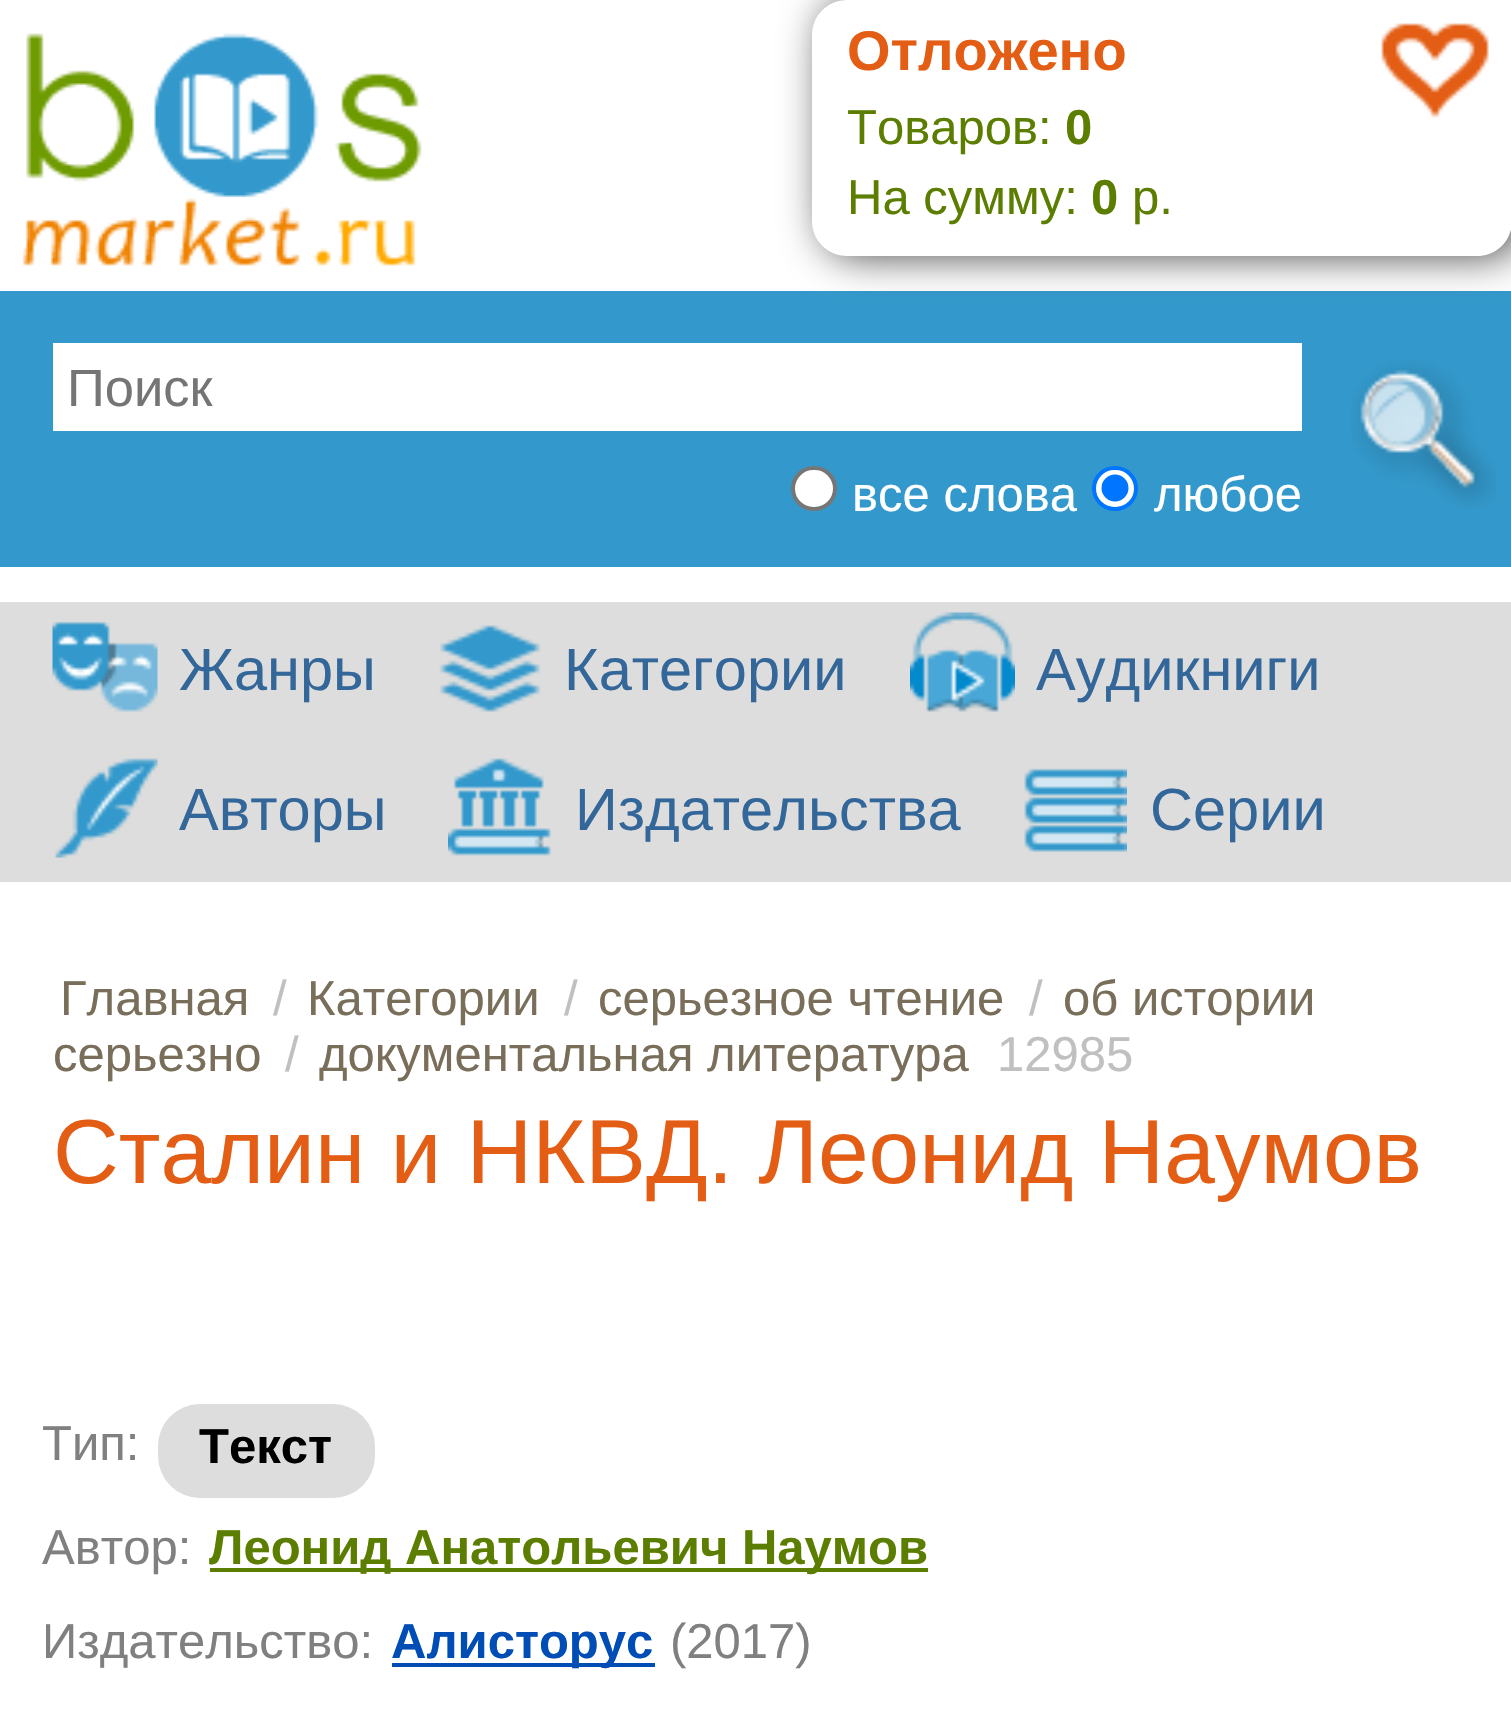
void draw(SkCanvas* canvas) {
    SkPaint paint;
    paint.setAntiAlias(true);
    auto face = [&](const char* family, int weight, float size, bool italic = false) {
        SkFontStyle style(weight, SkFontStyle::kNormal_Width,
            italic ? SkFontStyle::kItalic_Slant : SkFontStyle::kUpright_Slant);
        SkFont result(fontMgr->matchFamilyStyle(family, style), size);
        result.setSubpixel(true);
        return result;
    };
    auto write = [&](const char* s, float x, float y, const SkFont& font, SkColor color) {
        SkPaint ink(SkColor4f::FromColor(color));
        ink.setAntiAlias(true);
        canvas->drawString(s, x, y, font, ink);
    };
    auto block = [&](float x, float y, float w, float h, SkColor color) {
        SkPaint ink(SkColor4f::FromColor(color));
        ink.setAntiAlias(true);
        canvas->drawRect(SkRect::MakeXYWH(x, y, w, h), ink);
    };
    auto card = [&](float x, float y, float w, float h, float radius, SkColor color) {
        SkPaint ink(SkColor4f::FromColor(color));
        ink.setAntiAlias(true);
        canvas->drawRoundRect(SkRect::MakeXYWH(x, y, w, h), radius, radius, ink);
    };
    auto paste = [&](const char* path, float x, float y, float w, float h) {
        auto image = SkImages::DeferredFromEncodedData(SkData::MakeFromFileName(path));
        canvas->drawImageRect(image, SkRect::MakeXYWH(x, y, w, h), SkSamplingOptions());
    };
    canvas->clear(SK_ColorWHITE);
    paste("pic1.png", 22, 33, 400, 233);
    block(0, 291, 1511, 276, SkColorSetRGB(51, 153, 204));
    paint.setColor(SkColorSetRGB(68, 68, 68));
    paint.setMaskFilter(SkMaskFilter::MakeBlur(kNormal_SkBlurStyle, 21));
    canvas->drawRoundRect(SkRect::MakeXYWH(823, 0, 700, 256), 35, 35, paint);
    paint.setMaskFilter(nullptr);
    paint.setColor(SK_ColorWHITE);
    canvas->drawPath(SkPathBuilder().moveTo(847, 0).lineTo(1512, 0).lineTo(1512, 221).cubicTo(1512, 240.5f, 1496.5f, 256, 1477, 256).lineTo(847, 256).cubicTo(827.5f, 256, 812, 240.5f, 812, 221).lineTo(812, 35).cubicTo(812, 15.5f, 827.5f, 0, 847, 0).close().detach(), paint);
    paste("pic2.png", 1381, 23, 108, 97);
    auto kFont1 = face("Liberation Sans", 700, 56);
    write("Отложено", 847, 70, kFont1, SkColorSetRGB(227, 93, 20));
    auto kFont2 = face("Liberation Sans", 400, 49);
    write("Товаров:", 847, 144, kFont2, SkColorSetRGB(92, 126, 0));
    auto kFont3 = face("Liberation Sans", 700, 49);
    write("0", 1065, 144, kFont3, SkColorSetRGB(92, 126, 0));
    write("На сумму:", 847, 214, kFont2, SkColorSetRGB(92, 126, 0));
    write("0", 1091, 214, kFont3, SkColorSetRGB(92, 126, 0));
    write("р.", 1132, 214, kFont2, SkColorSetRGB(92, 126, 0));
    block(53, 343, 1249, 88, SK_ColorWHITE);
    auto kFont4 = face("Liberation Sans", 400, 52.5f);
    write("Поиск", 67, 406, kFont4, SkColorSetRGB(117, 117, 117));
    canvas->drawRoundRect(SkRect::MakeXYWH(793, 468, 42, 41), 20.5f, 20.5f, paint);
    paint.setStyle(SkPaint::kStroke_Style);
    paint.setStrokeWidth(4);
    paint.setColor(SkColorSetRGB(118, 118, 118));
    canvas->drawRoundRect(SkRect::MakeXYWH(793, 468, 42, 41), 20.5f, 20.5f, paint);
    write("все слова", 852, 511, kFont2, SK_ColorWHITE);
    paint.setStyle(SkPaint::kFill_Style);
    paint.setColor(SK_ColorWHITE);
    canvas->drawRoundRect(SkRect::MakeXYWH(1094, 468, 42, 41), 20.5f, 20.5f, paint);
    paint.setStyle(SkPaint::kStroke_Style);
    paint.setColor(SkColorSetRGB(0, 117, 255));
    canvas->drawRoundRect(SkRect::MakeXYWH(1094, 468, 42, 41), 20.5f, 20.5f, paint);
    paint.setStyle(SkPaint::kFill_Style);
    canvas->drawCircle(1115, 488, 13.5f, paint);
    write("любое", 1154, 511, kFont2, SK_ColorWHITE);
    paste("pic3.png", 1351, 360, 145, 148);
    block(0, 602, 1511, 280, SkColorSetRGB(221, 221, 221));
    paste("pic4.png", 52, 621, 106, 91);
    auto kFont5 = face("Liberation Sans", 400, 59.5f);
    write("Жанры", 179, 690, kFont5, SkColorSetRGB(51, 102, 153));
    paste("pic5.png", 439, 625, 102, 87);
    write("Категории", 564, 690, kFont5, SkColorSetRGB(51, 102, 153));
    paste("pic6.png", 910, 612, 105, 100);
    write("Аудикниги", 1036, 690, kFont5, SkColorSetRGB(51, 102, 153));
    paste("pic7.png", 54, 758, 104, 100);
    write("Авторы", 179, 830, kFont5, SkColorSetRGB(51, 102, 153));
    paste("pic8.png", 448, 758, 103, 98);
    write("Издательства", 575, 830, kFont5, SkColorSetRGB(51, 102, 153));
    paste("pic9.png", 1024, 768, 103, 84);
    write("Серии", 1150, 830, kFont5, SkColorSetRGB(51, 102, 153));
    write("Главная", 60, 1015, kFont2, SkColorSetRGB(120, 110, 89));
    write("/", 273, 1015, kFont2, SkColorSetRGB(192, 192, 192));
    write("Категории", 307, 1015, kFont2, SkColorSetRGB(120, 110, 89));
    write("/", 564, 1015, kFont2, SkColorSetRGB(192, 192, 192));
    write("серьезное чтение", 598, 1015, kFont2, SkColorSetRGB(120, 110, 89));
    write("/", 1029, 1015, kFont2, SkColorSetRGB(192, 192, 192));
    write("об истории", 1063, 1015, kFont2, SkColorSetRGB(120, 110, 89));
    write("серьезно", 53, 1071, kFont2, SkColorSetRGB(120, 110, 89));
    write("/", 285, 1071, kFont2, SkColorSetRGB(192, 192, 192));
    write("документальная литература", 319, 1071, kFont2, SkColorSetRGB(120, 110, 89));
    write("12985", 997, 1071, kFont2, SkColorSetRGB(192, 192, 192));
    auto kFont6 = face("Liberation Sans", 400, 91);
    write("Сталин и НКВД. Леонид Наумов", 53, 1183, kFont6, SkColorSetRGB(227, 93, 20));
    write("Тип:", 42, 1460, kFont2, SkColorSetRGB(128, 128, 128));
    card(158, 1404, 217, 94, 42, SkColorSetRGB(221, 221, 221));
    write("Текст", 199, 1463, kFont3, SK_ColorBLACK);
    write("Автор:", 42, 1564, kFont2, SkColorSetRGB(128, 128, 128));
    block(210, 1568, 718, 4, SkColorSetRGB(92, 126, 0));
    write("Леонид Анатольевич Наумов", 209, 1564, kFont3, SkColorSetRGB(92, 126, 0));
    write("Издательство:", 42, 1658, kFont2, SkColorSetRGB(128, 128, 128));
    block(392, 1663, 263, 4, SkColorSetRGB(0, 77, 181));
    write("Алисторус", 391, 1658, kFont3, SkColorSetRGB(0, 77, 181));
    write("(2017)", 670, 1658, kFont2, SkColorSetRGB(128, 128, 128));
}
